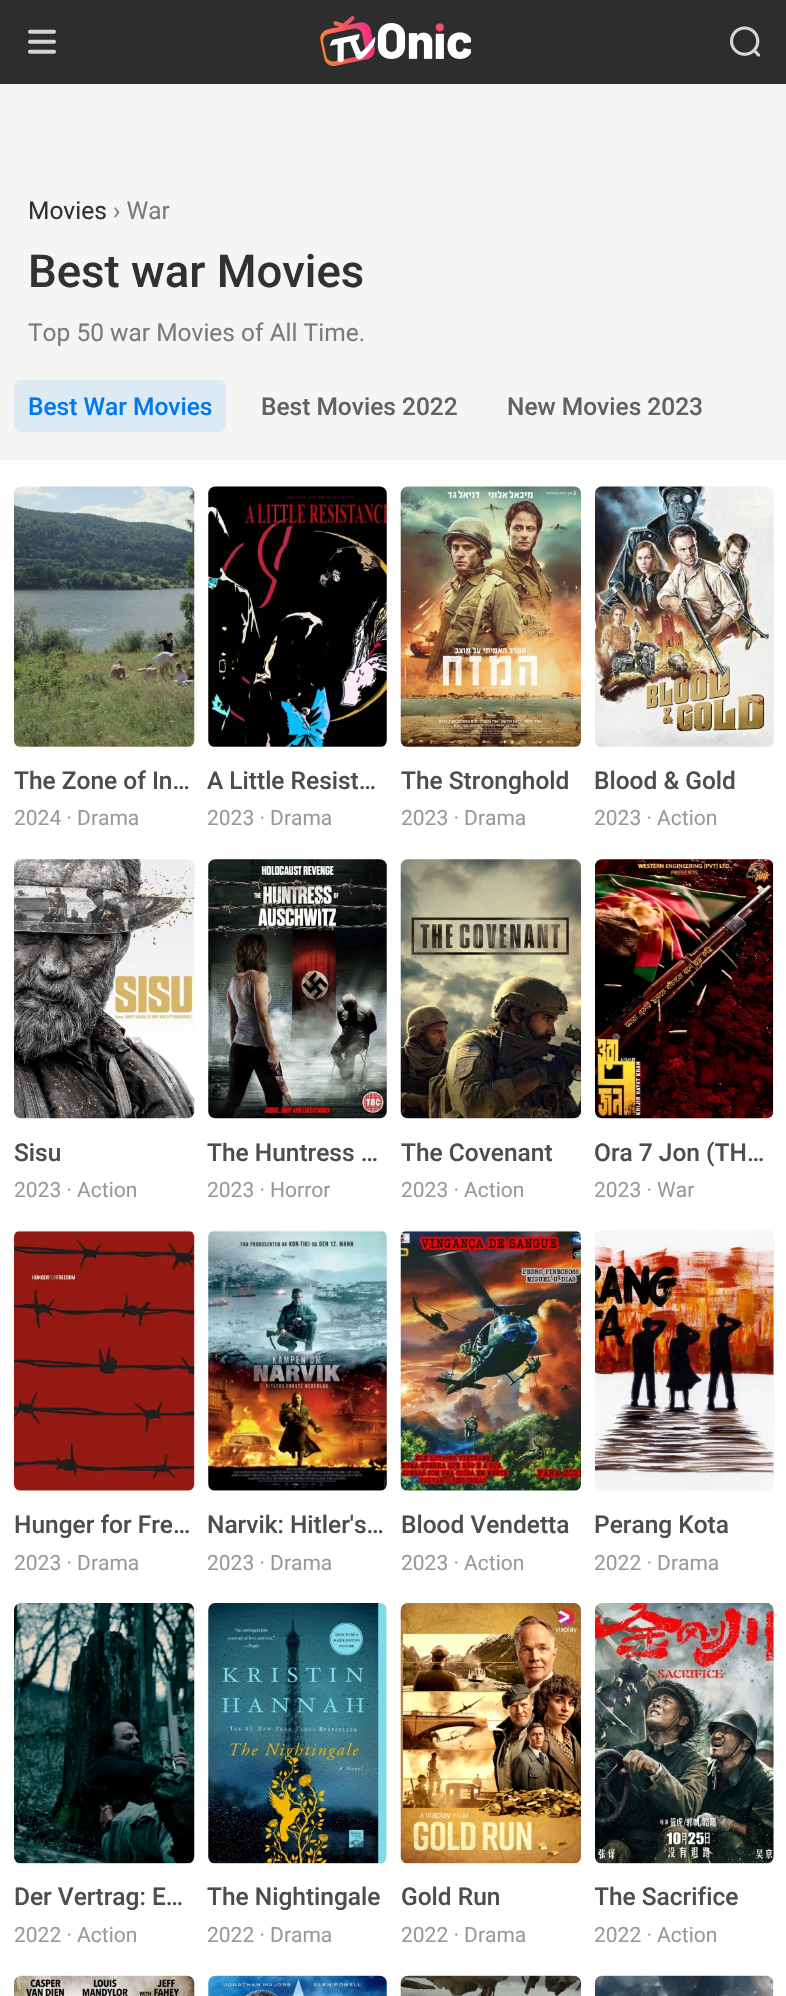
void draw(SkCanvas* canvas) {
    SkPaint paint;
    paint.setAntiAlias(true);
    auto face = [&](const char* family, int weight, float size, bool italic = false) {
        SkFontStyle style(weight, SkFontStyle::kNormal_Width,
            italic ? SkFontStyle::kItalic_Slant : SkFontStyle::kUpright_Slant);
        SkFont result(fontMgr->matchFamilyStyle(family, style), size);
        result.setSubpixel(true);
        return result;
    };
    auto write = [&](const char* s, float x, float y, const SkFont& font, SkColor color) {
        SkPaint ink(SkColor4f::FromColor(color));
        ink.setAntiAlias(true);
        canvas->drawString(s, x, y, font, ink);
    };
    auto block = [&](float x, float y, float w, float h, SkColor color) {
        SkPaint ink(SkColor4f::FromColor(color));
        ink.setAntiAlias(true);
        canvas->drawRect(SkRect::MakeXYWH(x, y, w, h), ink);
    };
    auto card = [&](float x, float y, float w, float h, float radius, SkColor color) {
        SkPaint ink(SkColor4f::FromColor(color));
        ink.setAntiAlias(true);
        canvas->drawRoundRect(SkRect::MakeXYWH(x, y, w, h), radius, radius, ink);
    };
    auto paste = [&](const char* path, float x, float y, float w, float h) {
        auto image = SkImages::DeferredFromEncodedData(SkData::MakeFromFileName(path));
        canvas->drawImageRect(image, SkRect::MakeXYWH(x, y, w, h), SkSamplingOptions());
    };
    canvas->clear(SK_ColorWHITE);
    block(0, 0, 786, 84, SkColorSetRGB(45, 45, 45));
    paste("pic1.png", 28, 29, 28, 25);
    paste("pic2.png", 320, 16, 151, 51);
    paste("pic3.png", 730, 26, 31, 31);
    block(0, 84, 786, 376, SkColorSetRGB(245, 245, 243));
    auto kFont1 = face("Roboto", 400, 24.5f);
    write("Movies", 28, 219, kFont1, SkColorSetRGB(49, 49, 49));
    write("› War", 113, 219, kFont1, SkColorSetRGB(123, 123, 122));
    auto kFont2 = face("Roboto", 500, 45.5f);
    write("Best war Movies", 28, 287, kFont2, SkColorSetRGB(49, 49, 49));
    write("Top 50 war Movies of All Time.", 28, 341, kFont1, SkColorSetRGB(123, 123, 122));
    card(14, 380, 212, 52, 7, SkColorSetRGB(221, 233, 243));
    auto kFont3 = face("Roboto", 500, 24.5f);
    write("Best War Movies", 28, 415, kFont3, SkColorSetRGB(0, 120, 242));
    write("Best Movies 2022", 261, 415, kFont3, SkColorSetRGB(98, 98, 97));
    write("New Movies 2023", 507, 415, kFont3, SkColorSetRGB(98, 98, 97));
    paste("pic4.png", 14, 486, 181, 261);
    write("The Zone of In…", 14, 789, kFont3, SkColorSetRGB(77, 77, 77));
    auto kFont4 = face("Roboto", 400, 21);
    write("2024 · Drama", 14, 825, kFont4, SkColorSetRGB(153, 153, 153));
    card(208, 487, 179, 260, 7, SkColorSetRGB(245, 245, 243));
    paste("pic5.png", 208, 486, 179, 261);
    write("A Little Resist…", 207, 789, kFont3, SkColorSetRGB(77, 77, 77));
    write("2023 · Drama", 207, 825, kFont4, SkColorSetRGB(153, 153, 153));
    paste("pic6.png", 400, 486, 181, 261);
    write("The Stronghold", 401, 789, kFont3, SkColorSetRGB(77, 77, 77));
    write("2023 · Drama", 401, 825, kFont4, SkColorSetRGB(153, 153, 153));
    card(595, 487, 179, 260, 7, SkColorSetRGB(245, 245, 243));
    paste("pic7.png", 595, 486, 179, 261);
    write("Blood & Gold", 594, 789, kFont3, SkColorSetRGB(77, 77, 77));
    write("2023 · Action", 594, 825, kFont4, SkColorSetRGB(153, 153, 153));
    card(14, 859, 180, 259, 7, SkColorSetRGB(245, 245, 243));
    paste("pic8.png", 14, 859, 181, 260);
    write("Sisu", 14, 1161, kFont3, SkColorSetRGB(77, 77, 77));
    write("2023 · Action", 14, 1197, kFont4, SkColorSetRGB(153, 153, 153));
    card(208, 859, 179, 259, 7, SkColorSetRGB(245, 245, 243));
    paste("pic9.png", 208, 859, 179, 260);
    write("The Huntress …", 207, 1161, kFont3, SkColorSetRGB(77, 77, 77));
    write("2023 · Horror", 207, 1197, kFont4, SkColorSetRGB(153, 153, 153));
    card(401, 859, 180, 259, 7, SkColorSetRGB(245, 245, 243));
    paste("pic10.png", 400, 859, 181, 260);
    write("The Covenant", 401, 1161, kFont3, SkColorSetRGB(77, 77, 77));
    write("2023 · Action", 401, 1197, kFont4, SkColorSetRGB(153, 153, 153));
    card(595, 859, 179, 259, 7, SkColorSetRGB(245, 245, 243));
    paste("pic11.png", 595, 859, 179, 260);
    write("Ora 7 Jon (TH…", 594, 1161, kFont3, SkColorSetRGB(77, 77, 77));
    write("2023 · War", 594, 1197, kFont4, SkColorSetRGB(153, 153, 153));
    card(14, 1230, 180, 261, 7, SkColorSetRGB(245, 245, 243));
    paste("pic12.png", 14, 1231, 181, 260);
    write("Hunger for Fre…", 14, 1533, kFont3, SkColorSetRGB(77, 77, 77));
    write("2023 · Drama", 14, 1570, kFont4, SkColorSetRGB(153, 153, 153));
    card(208, 1230, 179, 261, 7, SkColorSetRGB(245, 245, 243));
    paste("pic13.png", 208, 1231, 179, 260);
    write("Narvik: Hitler's…", 207, 1533, kFont3, SkColorSetRGB(77, 77, 77));
    write("2023 · Drama", 207, 1570, kFont4, SkColorSetRGB(153, 153, 153));
    card(401, 1230, 180, 261, 7, SkColorSetRGB(245, 245, 243));
    paste("pic14.png", 400, 1231, 181, 260);
    write("Blood Vendetta", 401, 1533, kFont3, SkColorSetRGB(77, 77, 77));
    write("2023 · Action", 401, 1570, kFont4, SkColorSetRGB(153, 153, 153));
    card(595, 1230, 179, 261, 7, SkColorSetRGB(245, 245, 243));
    paste("pic15.png", 595, 1231, 179, 259);
    write("Perang Kota", 594, 1533, kFont3, SkColorSetRGB(77, 77, 77));
    write("2022 · Drama", 594, 1570, kFont4, SkColorSetRGB(153, 153, 153));
    card(14, 1603, 180, 261, 7, SkColorSetRGB(245, 245, 243));
    paste("pic16.png", 14, 1603, 181, 261);
    write("Der Vertrag: E…", 14, 1905, kFont3, SkColorSetRGB(77, 77, 77));
    write("2022 · Action", 14, 1942, kFont4, SkColorSetRGB(153, 153, 153));
    card(208, 1603, 179, 261, 7, SkColorSetRGB(245, 245, 243));
    paste("pic17.png", 208, 1603, 179, 261);
    write("The Nightingale", 207, 1905, kFont3, SkColorSetRGB(77, 77, 77));
    write("2022 · Drama", 207, 1942, kFont4, SkColorSetRGB(153, 153, 153));
    card(401, 1603, 180, 261, 7, SkColorSetRGB(245, 245, 243));
    paste("pic18.png", 400, 1603, 181, 261);
    write("Gold Run", 401, 1905, kFont3, SkColorSetRGB(77, 77, 77));
    write("2022 · Drama", 401, 1942, kFont4, SkColorSetRGB(153, 153, 153));
    card(595, 1603, 179, 261, 7, SkColorSetRGB(245, 245, 243));
    paste("pic19.png", 595, 1603, 179, 261);
    canvas->save();
    canvas->clipRect(SkRect::MakeXYWH(595, 1864, 179, 59));
    write("The Sacrifice", 594, 1905, kFont3, SkColorSetRGB(77, 77, 77));
    canvas->restore();
    write("2022 · Action", 594, 1942, kFont4, SkColorSetRGB(153, 153, 153));
    paste("pic20.png", 14, 1975, 181, 21);
    card(208, 1976, 179, 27, 7, SkColorSetRGB(245, 245, 243));
    paste("pic21.png", 208, 1975, 179, 21);
    paste("pic22.png", 400, 1975, 181, 21);
    card(595, 1976, 179, 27, 7, SkColorSetRGB(245, 245, 243));
    paste("pic23.png", 595, 1975, 179, 21);
}
